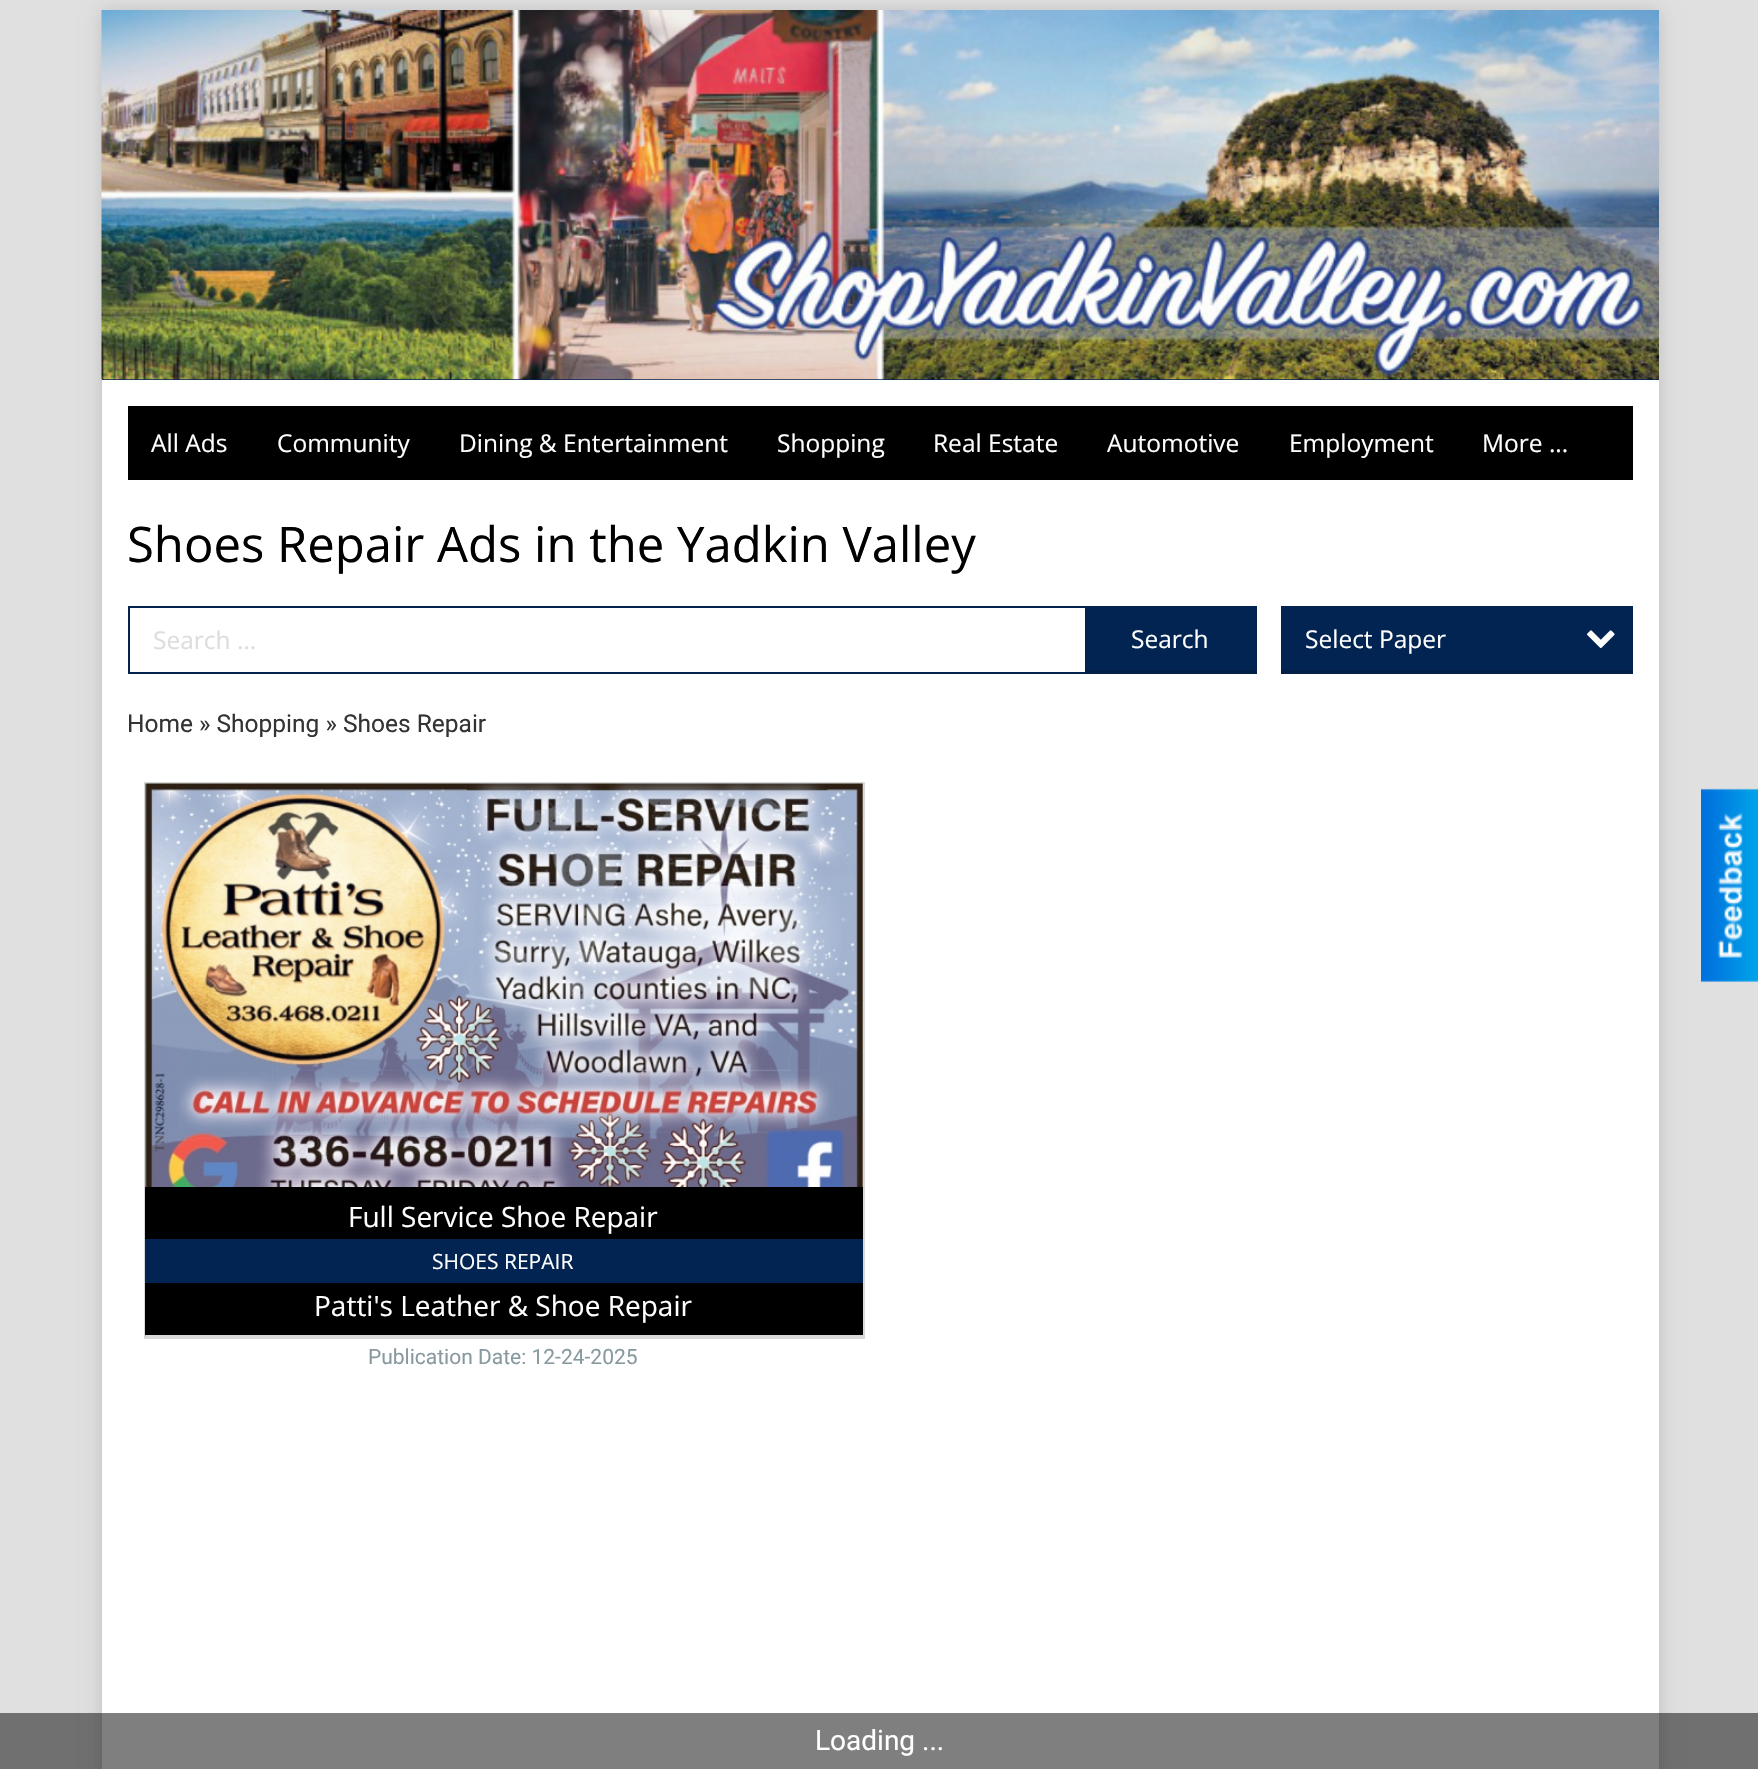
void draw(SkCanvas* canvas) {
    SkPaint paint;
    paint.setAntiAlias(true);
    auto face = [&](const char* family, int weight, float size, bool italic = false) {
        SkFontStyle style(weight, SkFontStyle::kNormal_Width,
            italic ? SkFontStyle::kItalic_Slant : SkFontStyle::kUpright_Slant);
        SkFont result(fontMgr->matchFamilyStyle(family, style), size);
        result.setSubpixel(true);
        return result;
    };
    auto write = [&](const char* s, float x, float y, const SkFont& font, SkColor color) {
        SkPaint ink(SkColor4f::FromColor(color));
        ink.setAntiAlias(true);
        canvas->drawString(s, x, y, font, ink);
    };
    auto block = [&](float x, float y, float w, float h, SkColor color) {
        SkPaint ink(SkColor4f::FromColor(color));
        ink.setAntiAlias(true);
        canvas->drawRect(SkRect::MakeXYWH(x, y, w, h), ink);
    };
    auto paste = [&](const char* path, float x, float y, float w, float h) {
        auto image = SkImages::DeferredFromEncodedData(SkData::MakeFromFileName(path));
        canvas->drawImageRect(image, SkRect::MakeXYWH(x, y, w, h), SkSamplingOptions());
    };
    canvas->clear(SkColorSetRGB(224, 224, 224));
    paint.setColor(SkColorSetARGB(38, 0, 0, 0));
    paint.setMaskFilter(SkMaskFilter::MakeBlur(kNormal_SkBlurStyle, 9));
    canvas->drawRect(SkRect::MakeXYWH(102, 11, 1557, 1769), paint);
    paint.setMaskFilter(nullptr);
    block(102, 380, 1557, 1389, SK_ColorWHITE);
    block(102, 379, 1557, 1, SkColorSetRGB(2, 36, 82));
    paste("pic1.png", 101, 10, 1558, 370);
    block(128, 406, 1505, 74, SK_ColorBLACK);
    auto kFont1 = face("Open Sans", 400, 24.5f);
    write("All Ads", 151, 452, kFont1, SK_ColorWHITE);
    write("Community", 277, 452, kFont1, SK_ColorWHITE);
    write("Dining & Entertainment", 459, 452, kFont1, SK_ColorWHITE);
    write("Shopping", 777, 452, kFont1, SK_ColorWHITE);
    write("Real Estate", 933, 452, kFont1, SK_ColorWHITE);
    write("Automotive", 1107, 452, kFont1, SK_ColorWHITE);
    write("Employment", 1289, 452, kFont1, SK_ColorWHITE);
    write("More ...", 1482, 452, kFont1, SK_ColorWHITE);
    auto kFont2 = face("Open Sans", 400, 49);
    write("Shoes Repair Ads in the Yadkin Valley", 127, 562, kFont2, SK_ColorBLACK);
    paint.setStyle(SkPaint::kStroke_Style);
    paint.setStrokeWidth(2);
    paint.setColor(SkColorSetRGB(2, 36, 82));
    canvas->drawRect(SkRect::MakeXYWH(129, 607, 1127, 66), paint);
    write("Search ...", 153, 649, kFont1, SkColorSetRGB(221, 221, 221));
    block(1085, 608, 170, 62, SkColorSetRGB(2, 36, 82));
    block(1085, 670, 172, 4, SkColorSetRGB(2, 31, 70));
    write("Search", 1131, 648, kFont1, SK_ColorWHITE);
    block(1281, 606, 352, 64, SkColorSetRGB(2, 36, 82));
    block(1281, 670, 352, 4, SkColorSetRGB(2, 31, 70));
    write("Select Paper", 1305, 648, kFont1, SK_ColorWHITE);
    paste("pic2.png", 1587, 630, 28, 18);
    auto kFont3 = face("Roboto", 400, 24.5f);
    write("Home » Shopping » Shoes Repair", 127, 732, kFont3, SkColorSetRGB(51, 51, 51));
    paint.setColor(SkColorSetRGB(217, 217, 217));
    canvas->drawRect(SkRect::MakeXYWH(145, 783, 719, 555), paint);
    block(145, 1335, 718, 2, SkColorSetARGB(38, 0, 0, 0));
    paste("pic3.png", 145, 783, 718, 404);
    block(145, 1187, 718, 148, SK_ColorBLACK);
    auto kFont4 = face("Open Sans", 400, 28);
    write("Full Service Shoe Repair", 348, 1227, kFont4, SK_ColorWHITE);
    block(145, 1239, 718, 44, SkColorSetRGB(2, 36, 82));
    auto kFont5 = face("Open Sans", 400, 21);
    write("SHOES REPAIR", 432, 1269, kFont5, SK_ColorWHITE);
    write("Patti's Leather & Shoe Repair", 314, 1316, kFont4, SK_ColorWHITE);
    auto kFont6 = face("Roboto", 400, 21);
    write("Publication Date: 12-24-2025", 368, 1364, kFont6, SkColorSetRGB(136, 153, 160));
    paste("pic4.png", 1701, 788, 57, 194);
    block(0, 1713, 1758, 56, SkColorSetARGB(128, 0, 0, 0));
    auto kFont7 = face("Roboto", 400, 28);
    write("Loading ...", 815, 1750, kFont7, SK_ColorWHITE);
}
